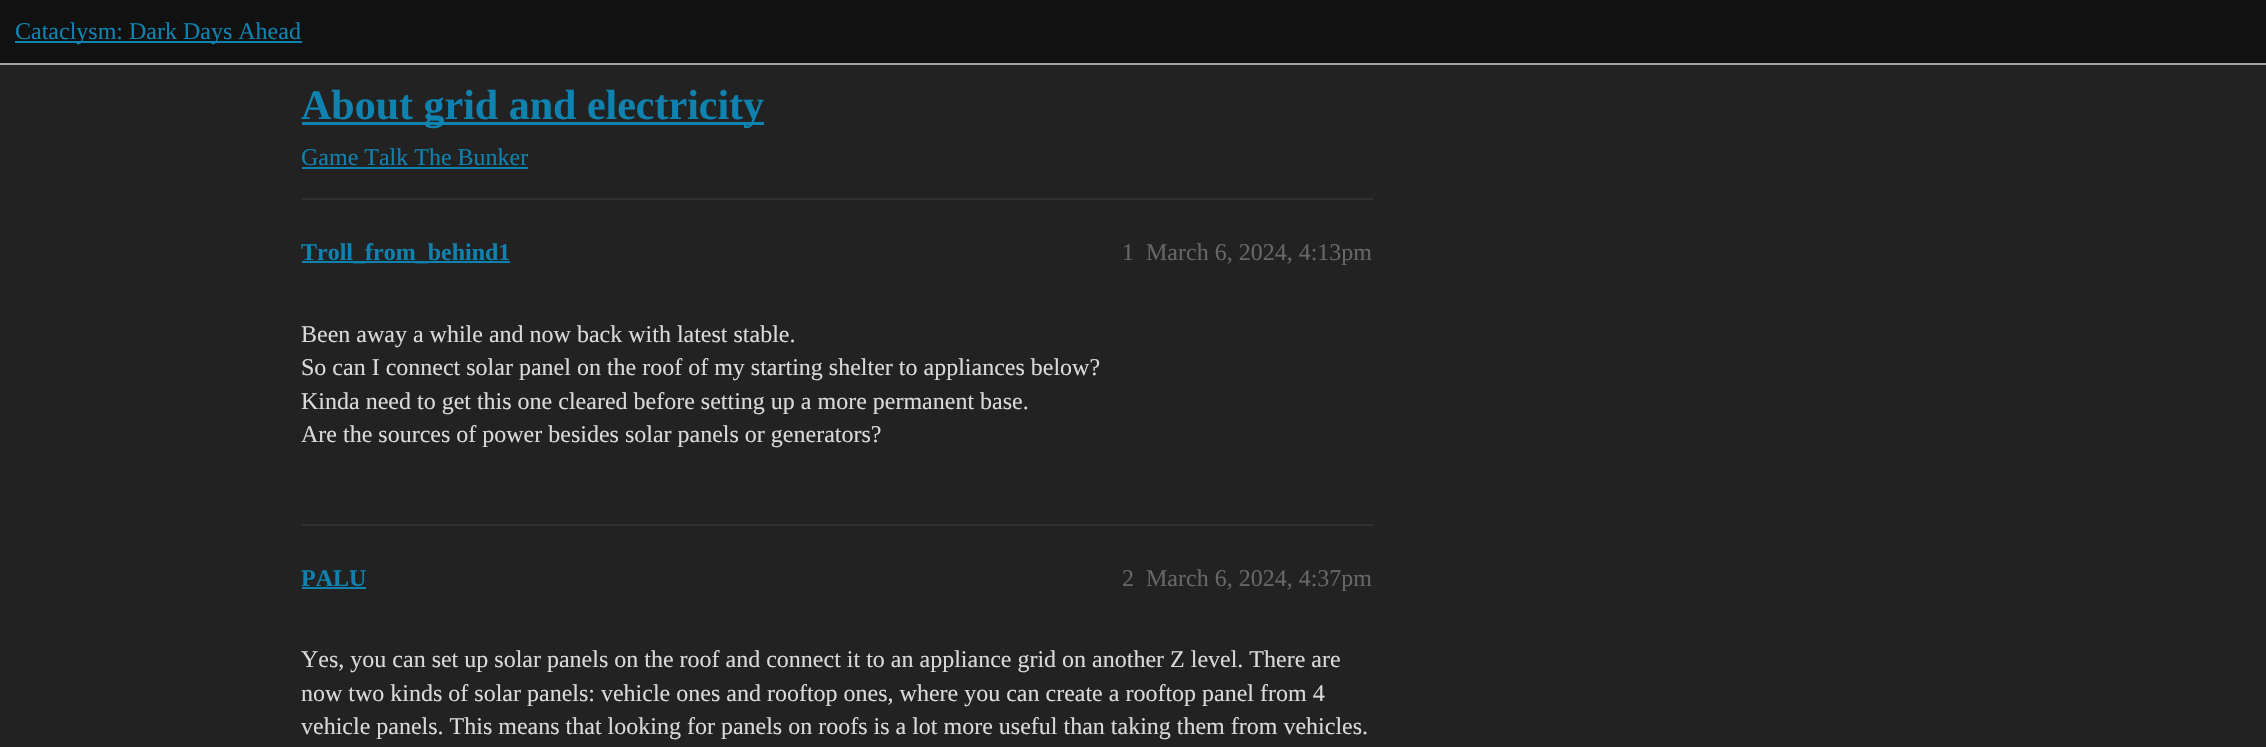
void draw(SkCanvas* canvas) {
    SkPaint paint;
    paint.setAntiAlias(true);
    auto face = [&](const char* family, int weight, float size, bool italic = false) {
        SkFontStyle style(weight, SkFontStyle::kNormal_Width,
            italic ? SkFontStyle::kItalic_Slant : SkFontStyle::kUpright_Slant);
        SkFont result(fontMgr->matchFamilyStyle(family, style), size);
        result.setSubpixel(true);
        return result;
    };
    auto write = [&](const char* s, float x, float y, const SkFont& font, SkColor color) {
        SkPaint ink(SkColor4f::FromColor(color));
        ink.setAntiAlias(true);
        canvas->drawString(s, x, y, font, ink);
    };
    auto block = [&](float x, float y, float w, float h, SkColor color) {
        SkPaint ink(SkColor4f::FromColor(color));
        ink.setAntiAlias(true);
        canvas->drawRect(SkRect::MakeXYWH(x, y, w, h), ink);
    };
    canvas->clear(SkColorSetRGB(34, 34, 34));
    block(0, 0, 2266, 63, SkColorSetRGB(17, 17, 17));
    block(0, 63, 2266, 2, SkColorSetRGB(164, 164, 164));
    block(15, 41, 287, 2, SkColorSetRGB(15, 130, 175));
    auto kFont1 = face("Liberation Serif", 400, 24);
    write("Cataclysm: Dark Days Ahead", 15, 39, kFont1, SkColorSetRGB(15, 130, 175));
    block(302, 122, 462, 3, SkColorSetRGB(15, 130, 175));
    auto kFont2 = face("Liberation Serif", 700, 42);
    write("About grid and electricity", 301, 119, kFont2, SkColorSetRGB(15, 130, 175));
    write("Game Talk The Bunker", 301, 165, kFont1, SkColorSetRGB(15, 130, 175));
    block(302, 167, 226, 2, SkColorSetRGB(15, 130, 175));
    block(302, 198, 1071, 2, SkColorSetRGB(48, 48, 48));
    block(302, 261, 208, 2, SkColorSetRGB(15, 130, 175));
    auto kFont3 = face("Liberation Serif", 700, 24);
    write("Troll_from_behind1", 301, 260, kFont3, SkColorSetRGB(15, 130, 175));
    write("1", 1122, 260, kFont1, SkColorSetRGB(102, 102, 102));
    write("March 6, 2024, 4:13pm", 1146, 260, kFont1, SkColorSetRGB(102, 102, 102));
    write("Been away a while and now back with latest stable.", 301, 342, kFont1, SkColorSetRGB(217, 217, 217));
    write("So can I connect solar panel on the roof of my starting shelter to appliances below?", 301, 375, kFont1, SkColorSetRGB(217, 217, 217));
    write("Kinda need to get this one cleared before setting up a more permanent base.", 301, 409, kFont1, SkColorSetRGB(217, 217, 217));
    write("Are the sources of power besides solar panels or generators?", 301, 442, kFont1, SkColorSetRGB(217, 217, 217));
    block(302, 524, 1071, 2, SkColorSetRGB(48, 48, 48));
    write("PALU", 301, 586, kFont3, SkColorSetRGB(15, 130, 175));
    block(302, 587, 64, 2, SkColorSetRGB(15, 130, 175));
    write("2", 1122, 586, kFont1, SkColorSetRGB(102, 102, 102));
    write("March 6, 2024, 4:37pm", 1146, 586, kFont1, SkColorSetRGB(102, 102, 102));
    write("Yes, you can set up solar panels on the roof and connect it to an appliance grid on another Z level. There are", 301, 667, kFont1, SkColorSetRGB(217, 217, 217));
    write("now two kinds of solar panels: vehicle ones and rooftop ones, where you can create a rooftop panel from 4", 301, 701, kFont1, SkColorSetRGB(217, 217, 217));
    write("vehicle panels. This means that looking for panels on roofs is a lot more useful than taking them from vehicles.", 301, 734, kFont1, SkColorSetRGB(217, 217, 217));
}
